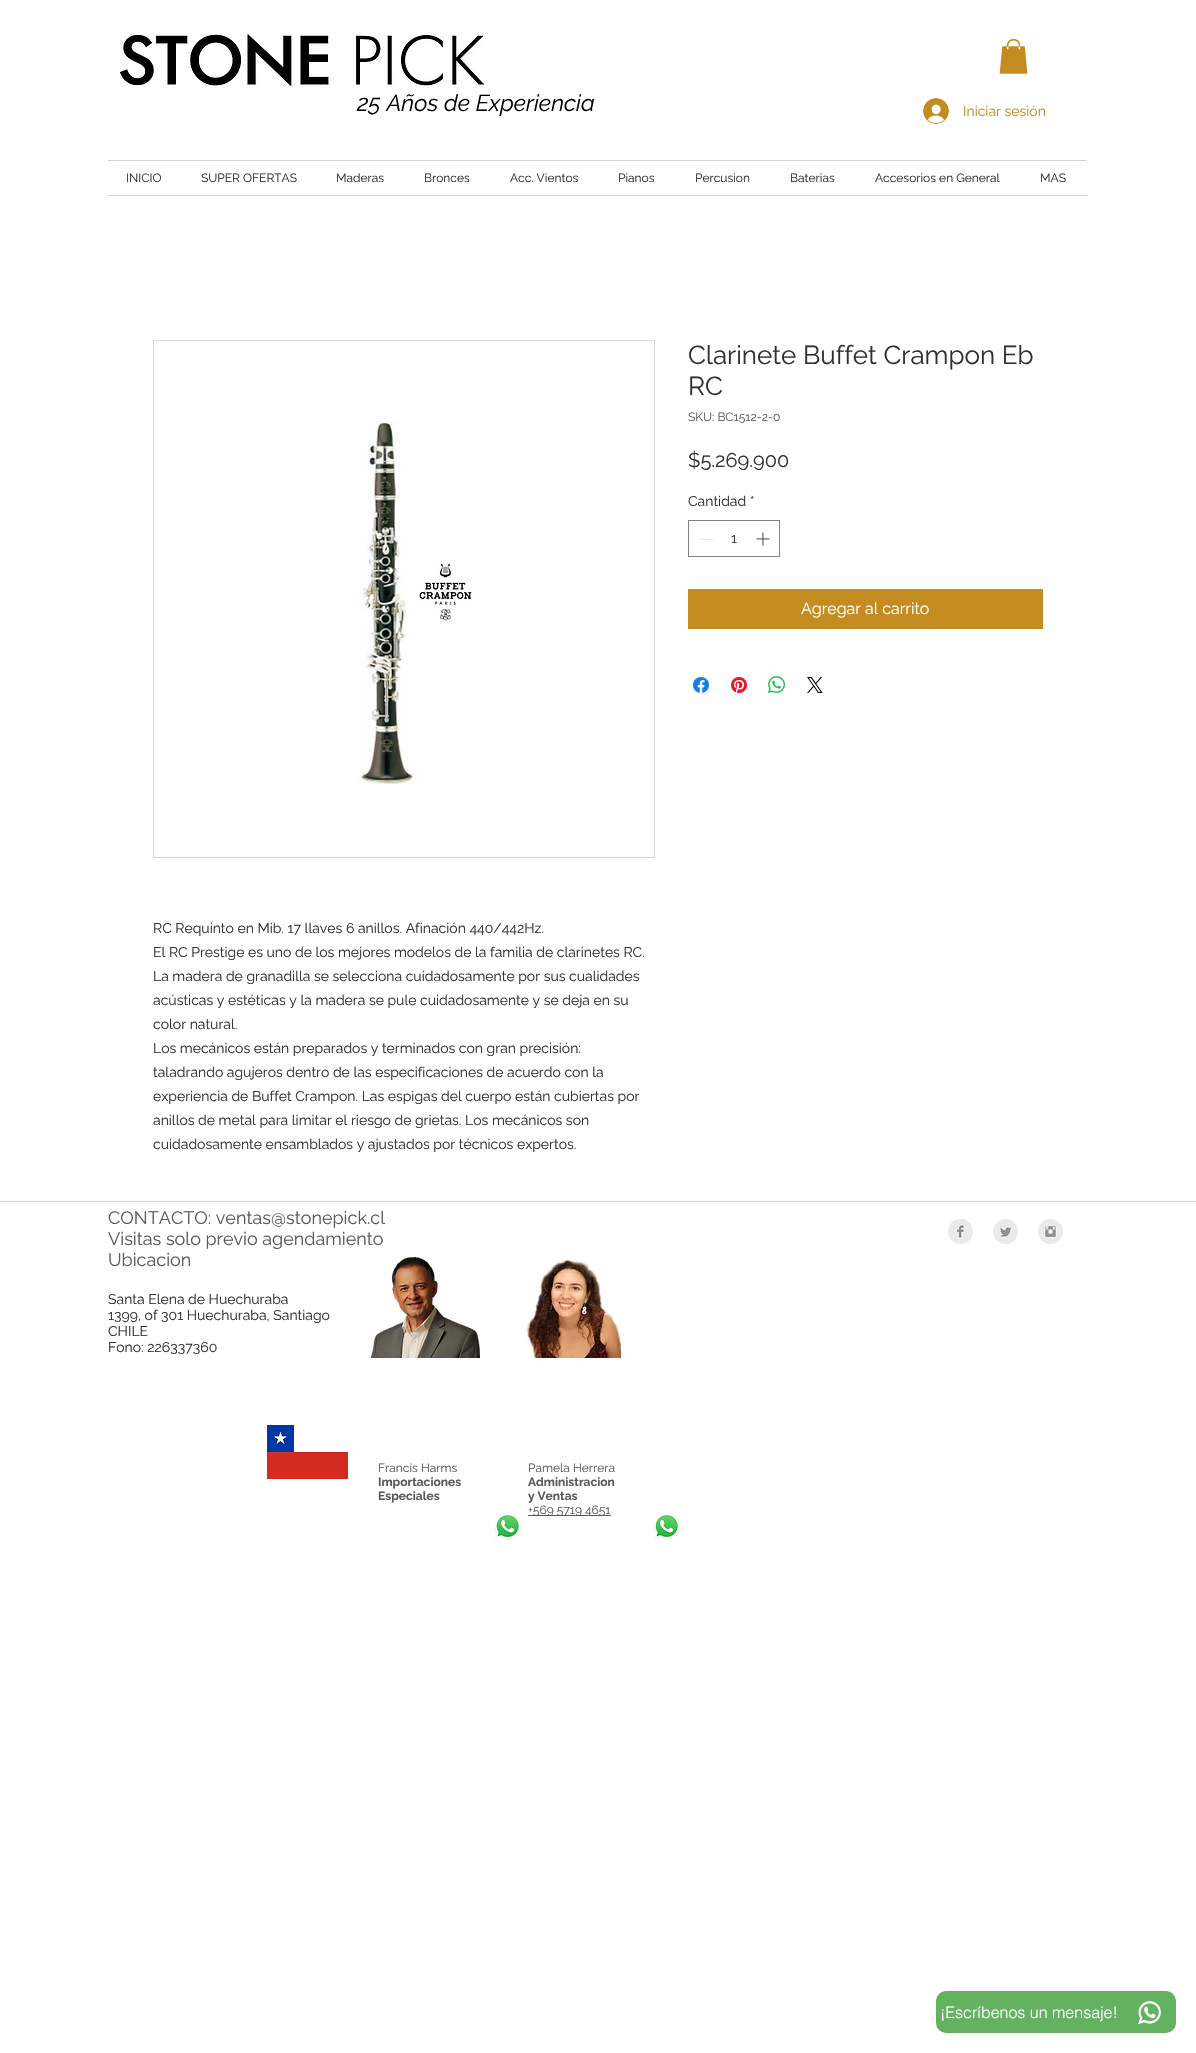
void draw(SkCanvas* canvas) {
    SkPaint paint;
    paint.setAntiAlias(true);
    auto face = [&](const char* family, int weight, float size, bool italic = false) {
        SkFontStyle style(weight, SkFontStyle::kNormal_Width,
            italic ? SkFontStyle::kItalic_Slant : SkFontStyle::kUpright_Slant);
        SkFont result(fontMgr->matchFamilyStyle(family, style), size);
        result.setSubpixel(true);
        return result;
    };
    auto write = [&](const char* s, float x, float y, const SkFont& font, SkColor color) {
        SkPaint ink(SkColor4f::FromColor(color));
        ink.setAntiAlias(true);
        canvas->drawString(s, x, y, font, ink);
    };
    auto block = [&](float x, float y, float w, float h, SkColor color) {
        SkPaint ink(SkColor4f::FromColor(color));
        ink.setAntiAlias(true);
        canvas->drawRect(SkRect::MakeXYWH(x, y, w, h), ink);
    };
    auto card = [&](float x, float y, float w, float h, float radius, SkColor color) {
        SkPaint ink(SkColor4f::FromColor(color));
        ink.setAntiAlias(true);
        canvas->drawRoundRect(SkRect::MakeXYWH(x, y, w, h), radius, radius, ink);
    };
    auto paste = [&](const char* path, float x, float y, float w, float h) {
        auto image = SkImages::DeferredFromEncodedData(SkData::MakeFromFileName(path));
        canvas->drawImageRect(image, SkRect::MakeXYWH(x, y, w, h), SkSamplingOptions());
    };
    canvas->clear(SK_ColorWHITE);
    paste("pic1.png", 118, 33, 367, 55);
    paste("pic2.png", 999, 39, 29, 35);
    auto kFont1 = face("Raleway", 400, 23, true);
    write("25 Años de Experiencia", 357, 111, kFont1, SK_ColorBLACK);
    paste("pic3.png", 923, 98, 26, 26);
    auto kFont2 = face("Raleway", 400, 14);
    write("Iniciar sesión", 963, 116, kFont2, SkColorSetRGB(196, 139, 33));
    block(108, 160, 979, 1, SkColorSetRGB(212, 212, 212));
    block(108, 195, 979, 1, SkColorSetRGB(212, 212, 212));
    auto kFont3 = face("Raleway", 400, 12);
    write("INICIO", 126, 182, kFont3, SkColorSetRGB(48, 48, 48));
    write("SUPER OFERTAS", 201, 182, kFont3, SkColorSetRGB(48, 48, 48));
    write("Maderas", 336, 182, kFont3, SkColorSetRGB(48, 48, 48));
    write("Bronces", 424, 182, kFont3, SkColorSetRGB(48, 48, 48));
    write("Acc. Vientos", 510, 182, kFont3, SkColorSetRGB(48, 48, 48));
    write("Pianos", 618, 182, kFont3, SkColorSetRGB(48, 48, 48));
    write("Percusion", 695, 182, kFont3, SkColorSetRGB(48, 48, 48));
    write("Baterias", 790, 182, kFont3, SkColorSetRGB(48, 48, 48));
    write("Accesorios en General", 875, 182, kFont3, SkColorSetRGB(48, 48, 48));
    write("MAS", 1040, 182, kFont3, SkColorSetRGB(48, 48, 48));
    auto kFont4 = face("Raleway", 400, 26);
    write("Clarinete Buffet Crampon Eb", 688, 364, kFont4, SkColorSetRGB(48, 48, 48));
    write("RC", 688, 395, kFont4, SkColorSetRGB(48, 48, 48));
    write("SKU: BC1512-2-0", 688, 421, kFont3, SkColorSetRGB(89, 89, 89));
    auto kFont5 = face("Raleway", 400, 20);
    write("$5.269.900", 688, 467, kFont5, SkColorSetRGB(48, 48, 48));
    write("Cantidad", 688, 506, kFont2, SkColorSetRGB(48, 48, 48));
    write("*", 750, 506, kFont2, SkColorSetRGB(48, 48, 48));
    paint.setStyle(SkPaint::kStroke_Style);
    paint.setStrokeWidth(1);
    paint.setColor(SkColorSetRGB(131, 131, 131));
    canvas->drawRect(SkRect::MakeXYWH(688.5f, 520.5f, 91, 36), paint);
    block(700, 539, 13, 1, SkColorSetRGB(227, 227, 227));
    write("1", 731, 543, kFont2, SkColorSetRGB(48, 48, 48));
    paste("pic4.png", 756, 532, 14, 14);
    block(688, 589, 355, 40, SkColorSetRGB(196, 139, 33));
    auto kFont6 = face("Raleway", 400, 16);
    write("Agregar al carrito", 801, 614, kFont6, SK_ColorWHITE);
    paste("pic5.png", 693, 677, 16, 16);
    paste("pic6.png", 731, 677, 16, 16);
    paste("pic7.png", 768, 676, 17, 17);
    paste("pic8.png", 807, 677, 16, 16);
    paint.setColor(SkColorSetRGB(214, 214, 214));
    canvas->drawRect(SkRect::MakeXYWH(153.5f, 340.5f, 501, 517), paint);
    paste("pic9.png", 359, 422, 114, 363);
    write("RC Requinto en Mib. 17 llaves 6 anillos. Afinación 440/442Hz.", 153, 933, kFont2, SkColorSetRGB(48, 48, 48));
    write("El RC Prestige es uno de los mejores modelos de la familia de clarinetes RC.", 153, 957, kFont2, SkColorSetRGB(48, 48, 48));
    write("La madera de granadilla se selecciona cuidadosamente por sus cualidades", 153, 981, kFont2, SkColorSetRGB(48, 48, 48));
    write("acústicas y estéticas y la madera se pule cuidadosamente y se deja en su", 153, 1005, kFont2, SkColorSetRGB(48, 48, 48));
    write("color natural.", 153, 1029, kFont2, SkColorSetRGB(48, 48, 48));
    write("Los mecánicos están preparados y terminados con gran precisión:", 153, 1053, kFont2, SkColorSetRGB(48, 48, 48));
    write("taladrando agujeros dentro de las especificaciones de acuerdo con la", 153, 1077, kFont2, SkColorSetRGB(48, 48, 48));
    write("experiencia de Buffet Crampon. Las espigas del cuerpo están cubiertas por", 153, 1101, kFont2, SkColorSetRGB(48, 48, 48));
    write("anillos de metal para limitar el riesgo de grietas. Los mecánicos son", 153, 1125, kFont2, SkColorSetRGB(48, 48, 48));
    write("cuidadosamente ensamblados y ajustados por técnicos expertos.", 153, 1149, kFont2, SkColorSetRGB(48, 48, 48));
    block(0, 1201, 1196, 1, SkColorSetRGB(214, 214, 214));
    auto kFont7 = face("Raleway", 400, 18);
    write("CONTACTO: ventas@stonepick.cl", 108, 1224, kFont7, SkColorSetRGB(89, 89, 89));
    write("Visitas solo previo agendamiento", 108, 1245, kFont7, SkColorSetRGB(89, 89, 89));
    write("Ubicacion", 108, 1266, kFont7, SkColorSetRGB(89, 89, 89));
    write("Santa Elena de Huechuraba", 108, 1304, kFont2, SkColorSetRGB(48, 48, 48));
    write("1399, of 301 Huechuraba, Santiago", 108, 1320, kFont2, SkColorSetRGB(48, 48, 48));
    write("CHILE", 108, 1336, kFont2, SkColorSetRGB(48, 48, 48));
    write("Fono: 226337360", 108, 1352, kFont2, SkColorSetRGB(48, 48, 48));
    paste("pic10.png", 948, 1219, 25, 25);
    paste("pic11.png", 993, 1219, 25, 25);
    paste("pic12.png", 1038, 1219, 25, 25);
    paste("pic13.png", 370, 1256, 110, 102);
    paste("pic14.png", 525, 1259, 96, 99);
    paste("pic15.png", 267, 1425, 81, 54);
    write("Francis Harms", 378, 1472, kFont3, SkColorSetRGB(89, 89, 89));
    auto kFont8 = face("Raleway", 700, 12);
    write("Importaciones", 378, 1486, kFont8, SkColorSetRGB(89, 89, 89));
    write("Especiales", 378, 1500, kFont8, SkColorSetRGB(89, 89, 89));
    write("Pamela Herrera", 528, 1472, kFont3, SkColorSetRGB(89, 89, 89));
    write("Administracion", 528, 1486, kFont8, SkColorSetRGB(89, 89, 89));
    write("y Ventas", 528, 1500, kFont8, SkColorSetRGB(89, 89, 89));
    block(528, 1515, 83, 1, SkColorSetRGB(89, 89, 89));
    write("+569 5719 4651", 528, 1514, kFont3, SkColorSetRGB(89, 89, 89));
    paste("pic16.png", 494, 1515, 28, 25);
    paste("pic16.png", 653, 1515, 28, 25);
    card(936, 1991, 240, 42, 10, SkColorSetRGB(100, 177, 97));
    auto kFont9 = face("helvetica", 300, 16);
    write("¡Escríbenos un mensaje!", 940, 2018, kFont9, SK_ColorWHITE);
    paste("pic17.png", 1138, 2001, 23, 24);
}
